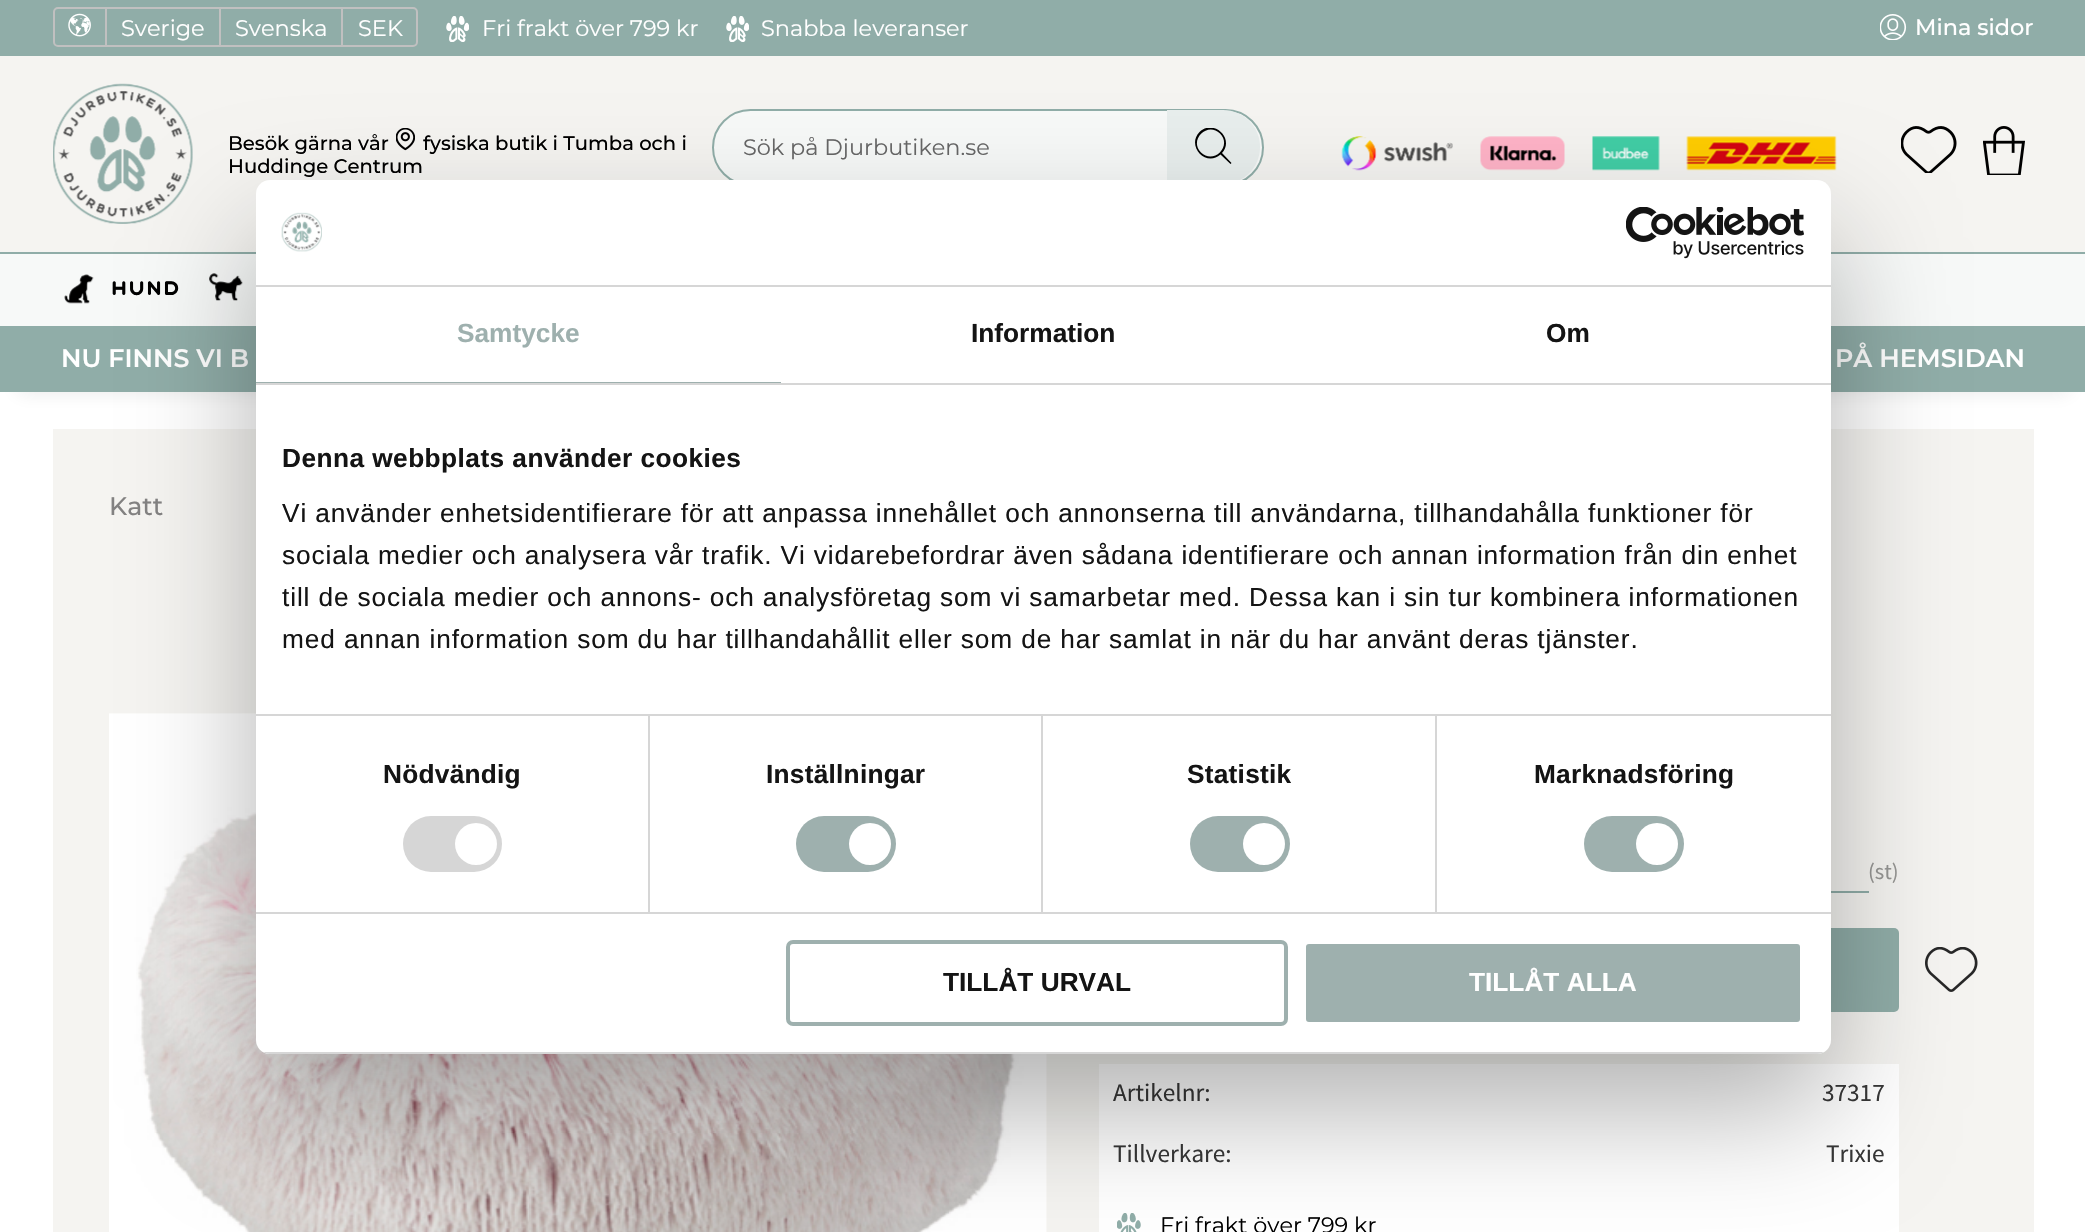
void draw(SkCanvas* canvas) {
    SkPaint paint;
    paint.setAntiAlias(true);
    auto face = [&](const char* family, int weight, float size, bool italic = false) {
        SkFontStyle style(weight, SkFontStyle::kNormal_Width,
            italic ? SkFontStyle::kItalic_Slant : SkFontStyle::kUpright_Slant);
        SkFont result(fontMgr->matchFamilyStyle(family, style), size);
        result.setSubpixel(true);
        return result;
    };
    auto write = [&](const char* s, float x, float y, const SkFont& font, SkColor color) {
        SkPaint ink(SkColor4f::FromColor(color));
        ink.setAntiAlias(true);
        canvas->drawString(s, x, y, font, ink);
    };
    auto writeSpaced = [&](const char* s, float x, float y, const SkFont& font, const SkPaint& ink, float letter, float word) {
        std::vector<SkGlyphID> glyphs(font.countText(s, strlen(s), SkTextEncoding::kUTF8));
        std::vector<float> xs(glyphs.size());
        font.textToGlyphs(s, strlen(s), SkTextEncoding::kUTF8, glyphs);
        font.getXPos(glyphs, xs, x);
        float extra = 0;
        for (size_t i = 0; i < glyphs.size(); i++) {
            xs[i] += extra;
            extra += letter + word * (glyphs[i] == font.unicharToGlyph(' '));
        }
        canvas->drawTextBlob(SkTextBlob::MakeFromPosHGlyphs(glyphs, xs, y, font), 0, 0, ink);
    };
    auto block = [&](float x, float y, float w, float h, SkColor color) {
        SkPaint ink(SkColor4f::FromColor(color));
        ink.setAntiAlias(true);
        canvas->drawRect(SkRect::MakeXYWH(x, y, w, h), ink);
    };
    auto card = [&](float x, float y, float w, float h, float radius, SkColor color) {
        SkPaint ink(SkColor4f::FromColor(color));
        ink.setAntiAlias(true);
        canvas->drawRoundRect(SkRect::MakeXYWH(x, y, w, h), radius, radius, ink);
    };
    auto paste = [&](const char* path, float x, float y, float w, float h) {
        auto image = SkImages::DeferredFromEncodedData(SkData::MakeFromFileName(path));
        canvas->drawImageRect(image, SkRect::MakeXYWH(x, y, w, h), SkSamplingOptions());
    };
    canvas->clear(SK_ColorWHITE);
    paint.setColor(SkColorSetARGB(26, 33, 35, 38));
    paint.setMaskFilter(SkMaskFilter::MakeBlur(kNormal_SkBlurStyle, 9));
    canvas->drawRect(SkRect::MakeXYWH(18, 35, 2051, 357), paint);
    paint.setMaskFilter(nullptr);
    block(0, 0, 2085, 56, SkColorSetRGB(144, 173, 168));
    paint.setStyle(SkPaint::kStroke_Style);
    paint.setStrokeWidth(2);
    paint.setColor(SkColorSetRGB(192, 192, 192));
    canvas->drawRoundRect(SkRect::MakeXYWH(54, 8, 363, 38), 4, 4, paint);
    paste("pic1.png", 68, 13, 23, 24);
    block(105, 9, 2, 37, SkColorSetRGB(192, 192, 192));
    auto kFont1 = face("Montserrat", 400, 22.5f);
    write("Sverige", 121, 36, kFont1, SK_ColorWHITE);
    block(219, 9, 2, 37, SkColorSetRGB(192, 192, 192));
    write("Svenska", 235, 36, kFont1, SK_ColorWHITE);
    block(341, 9, 2, 37, SkColorSetRGB(192, 192, 192));
    write("SEK", 358, 36, kFont1, SK_ColorWHITE);
    paste("pic2.png", 446, 16, 23, 26);
    auto kFont2 = face("Montserrat", 400, 22.4f);
    write("Fri frakt över 799 kr", 482, 36, kFont2, SK_ColorWHITE);
    paste("pic2.png", 726, 16, 23, 26);
    write("Snabba leveranser", 761, 36, kFont2, SK_ColorWHITE);
    paste("pic3.png", 1880, 14, 27, 26);
    auto kFont3 = face("Montserrat", 500, 22.4f);
    write("Mina sidor", 1915, 35, kFont3, SK_ColorWHITE);
    block(0, 56, 2085, 196, SkColorSetRGB(245, 244, 241));
    paste("pic4.png", 53, 83, 140, 141);
    auto kFont4 = face("Montserrat", 500, 19.6f);
    write("Besök gärna vår", 228, 150, kFont4, SK_ColorBLACK);
    paste("pic5.png", 396, 128, 19, 23);
    write("fysiska butik i Tumba och i", 423, 150, kFont4, SK_ColorBLACK);
    write("Huddinge Centrum", 228, 173, kFont4, SK_ColorBLACK);
    paint.setStyle(SkPaint::kFill_Style);
    paint.setColor(SkColorSetRGB(247, 249, 248));
    canvas->drawRoundRect(SkRect::MakeXYWH(713, 110, 550, 75), 37.5f, 37.5f, paint);
    paint.setStyle(SkPaint::kStroke_Style);
    paint.setColor(SkColorSetRGB(144, 173, 168));
    canvas->drawRoundRect(SkRect::MakeXYWH(713, 110, 550, 75), 37.5f, 37.5f, paint);
    write("Sök på Djurbutiken.se", 743, 155, kFont2, SkColorSetRGB(102, 102, 102));
    paint.setStyle(SkPaint::kFill_Style);
    paint.setColor(SkColorSetRGB(232, 238, 237));
    canvas->drawPath(SkPathBuilder().moveTo(1167, 110).lineTo(1223, 110).cubicTo(1243.5f, 110, 1260, 126.5f, 1260, 147).cubicTo(1260, 167.5f, 1243.5f, 184, 1223, 184).lineTo(1167, 184).close().detach(), paint);
    canvas->save();
    canvas->clipRect(SkRect::MakeXYWH(1195, 128, 37, 37));
    paint.setColor(SK_ColorBLACK);
    canvas->drawPath(SkPathBuilder().moveTo(1222, 153).cubicTo(1235, 138.5f, 1213.5f, 118.5f, 1199.5f, 132).cubicTo(1186, 146, 1206, 167.5f, 1220.5f, 154.5f).lineTo(1230.5f, 164).lineTo(1231.5f, 163).close().moveTo(1201, 152.5f).cubicTo(1188.5f, 140, 1207.5f, 121, 1220, 133.5f).cubicTo(1232.5f, 146, 1213.5f, 165, 1201, 152.5f).close().detach(), paint);
    canvas->restore();
    paste("pic6.png", 1341, 136, 112, 35);
    paste("pic7.png", 1480, 136, 85, 35);
    paste("pic8.png", 1592, 136, 68, 35);
    paste("pic9.png", 1686, 136, 151, 35);
    paste("pic10.png", 1901, 126, 56, 47);
    paste("pic11.png", 1983, 126, 42, 49);
    block(0, 254, 2085, 72, SkColorSetRGB(247, 249, 248));
    block(0, 252, 2085, 2, SkColorSetRGB(144, 173, 168));
    paste("pic12.png", 64, 274, 30, 30);
    auto kFont5 = face("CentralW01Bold", 700, 19.6f);
    writeSpaced("HUND", 111, 295, kFont5, paint, 1.5f, 0);
    paste("pic13.png", 209, 273, 34, 28);
    block(0, 326, 2085, 66, SkColorSetRGB(144, 173, 168));
    auto kFont6 = face("Montserrat", 600, 25.25f);
    write("NU FINNS VI B", 61, 367, kFont6, SK_ColorWHITE);
    write("PÅ HEMSIDAN", 1835, 367, kFont6, SK_ColorWHITE);
    block(53, 429, 1981, 803, SkColorSetRGB(245, 244, 241));
    auto kFont7 = face("Montserrat", 500, 25.25f);
    write("Katt", 109, 515, kFont7, SkColorSetRGB(131, 130, 130));
    paste("pic14.png", 109, 713, 938, 519);
    auto kFont8 = face("Source Sans Pro", 400, 22.4f);
    write("(st)", 1868, 879, kFont8, SkColorSetRGB(150, 150, 148));
    block(1831, 891, 38, 2, SkColorSetRGB(144, 173, 168));
    card(1099, 928, 800, 84, 5, SkColorSetRGB(144, 173, 168));
    paste("pic15.png", 1925, 947, 53, 45);
    block(1099, 1064, 320, 123, SK_ColorWHITE);
    auto kFont9 = face("Source Sans Pro", 400, 25.25f);
    write("Artikelnr:", 1113, 1101, kFont9, SkColorSetRGB(55, 55, 55));
    block(1419, 1064, 480, 123, SK_ColorWHITE);
    write("37317", 1822, 1101, kFont9, SkColorSetRGB(55, 55, 55));
    write("Tillverkare:", 1113, 1162, kFont9, SkColorSetRGB(55, 55, 55));
    write("Trixie", 1826, 1162, kFont9, SkColorSetRGB(55, 55, 55));
    block(1099, 1187, 800, 45, SK_ColorWHITE);
    paste("pic16.png", 1117, 1213, 24, 19);
    write("Fri frakt över 799 kr", 1160, 1233, kFont2, SK_ColorBLACK);
    paint.setColor(SkColorSetARGB(77, 0, 0, 0));
    paint.setMaskFilter(SkMaskFilter::MakeBlur(kNormal_SkBlurStyle, 59.5f));
    canvas->drawRoundRect(SkRect::MakeXYWH(256, 236, 1575, 874), 14, 14, paint);
    paint.setMaskFilter(nullptr);
    card(256, 180, 1575, 874, 14, SK_ColorWHITE);
    block(256, 285, 1575, 2, SkColorSetRGB(214, 214, 214));
    paste("pic17.png", 281, 212, 41, 40);
    paste("pic18.png", 1626, 207, 178, 52);
    block(256, 383, 1575, 2, SkColorSetRGB(214, 214, 214));
    block(256, 382, 525, 1, SkColorSetRGB(158, 176, 174));
    auto kFont10 = face("Liberation Sans", 700, 26.25f);
    write("Samtycke", 457, 342, kFont10, SkColorSetRGB(158, 176, 174));
    write("Information", 971, 342, kFont10, SkColorSetRGB(20, 20, 20));
    write("Om", 1546, 342, kFont10, SkColorSetRGB(20, 20, 20));
    block(256, 714, 1575, 2, SkColorSetRGB(214, 214, 214));
    paint.setColor(SkColorSetRGB(20, 20, 20));
    writeSpaced("Denna webbplats använder cookies", 282, 467, kFont10, paint, 0.45f, 0);
    auto kFont11 = face("Liberation Sans", 400, 26.25f);
    writeSpaced("Vi använder enhetsidentifierare för att anpassa innehållet och annonserna till användarna, tillhandahålla funktioner för", 282, 522, kFont11, paint, 0.88f, 0);
    writeSpaced("sociala medier och analysera vår trafik. Vi vidarebefordrar även sådana identifierare och annan information från din enhet", 282, 564, kFont11, paint, 0.88f, 0);
    writeSpaced("till de sociala medier och annons- och analysföretag som vi samarbetar med. Dessa kan i sin tur kombinera informationen", 282, 606, kFont11, paint, 0.88f, 0);
    writeSpaced("med annan information som du har tillhandahållit eller som de har samlat in när du har använt deras tjänster.", 282, 648, kFont11, paint, 0.88f, 0);
    block(256, 912, 1575, 2, SkColorSetRGB(214, 214, 214));
    block(648, 716, 2, 196, SkColorSetRGB(214, 214, 214));
    writeSpaced("Nödvändig", 383, 783, kFont10, paint, 0.25f, 0);
    card(403, 816, 99, 56, 28, SkColorSetRGB(214, 214, 214));
    paint.setColor(SK_ColorWHITE);
    canvas->drawCircle(476, 844, 21, paint);
    block(1041, 716, 2, 196, SkColorSetRGB(214, 214, 214));
    paint.setColor(SkColorSetRGB(20, 20, 20));
    writeSpaced("Inställningar", 766, 783, kFont10, paint, 0.25f, 0);
    card(796, 816, 100, 56, 28, SkColorSetRGB(158, 176, 174));
    paint.setColor(SK_ColorWHITE);
    canvas->drawCircle(870, 844, 21, paint);
    block(1435, 716, 2, 196, SkColorSetRGB(214, 214, 214));
    paint.setColor(SkColorSetRGB(20, 20, 20));
    writeSpaced("Statistik", 1187, 783, kFont10, paint, 0.25f, 0);
    card(1190, 816, 100, 56, 28, SkColorSetRGB(158, 176, 174));
    paint.setColor(SK_ColorWHITE);
    canvas->drawCircle(1264, 844, 21, paint);
    paint.setColor(SkColorSetRGB(20, 20, 20));
    writeSpaced("Marknadsföring", 1534, 783, kFont10, paint, 0.25f, 0);
    card(1584, 816, 100, 56, 28, SkColorSetRGB(158, 176, 174));
    paint.setColor(SK_ColorWHITE);
    canvas->drawCircle(1657, 844, 21, paint);
    canvas->save();
    canvas->clipPath(SkPathBuilder().moveTo(270, 180).lineTo(1817, 180).cubicTo(1824.5f, 180, 1831, 186.5f, 1831, 194).lineTo(1831, 1040).cubicTo(1831, 1047.5f, 1824.5f, 1054, 1817, 1054).lineTo(270, 1054).cubicTo(262.5f, 1054, 256, 1047.5f, 256, 1040).lineTo(256, 194).cubicTo(256, 186.5f, 262.5f, 180, 270, 180).close().detach(), true);
    block(256, 1052, 1575, 2, SkColorSetRGB(214, 214, 214));
    canvas->restore();
    paint.setStyle(SkPaint::kStroke_Style);
    paint.setStrokeWidth(4);
    paint.setColor(SkColorSetRGB(158, 176, 174));
    canvas->drawRoundRect(SkRect::MakeXYWH(788, 942, 498, 82), 5, 5, paint);
    write("TILLÅT URVAL", 943, 991, kFont10, SkColorSetRGB(20, 20, 20));
    paint.setStyle(SkPaint::kFill_Style);
    canvas->drawRoundRect(SkRect::MakeXYWH(1304, 942, 498, 82), 5, 5, paint);
    paint.setStyle(SkPaint::kStroke_Style);
    paint.setColor(SK_ColorWHITE);
    canvas->drawRoundRect(SkRect::MakeXYWH(1304, 942, 498, 82), 5, 5, paint);
    write("TILLÅT ALLA", 1469, 991, kFont10, SK_ColorWHITE);
}
